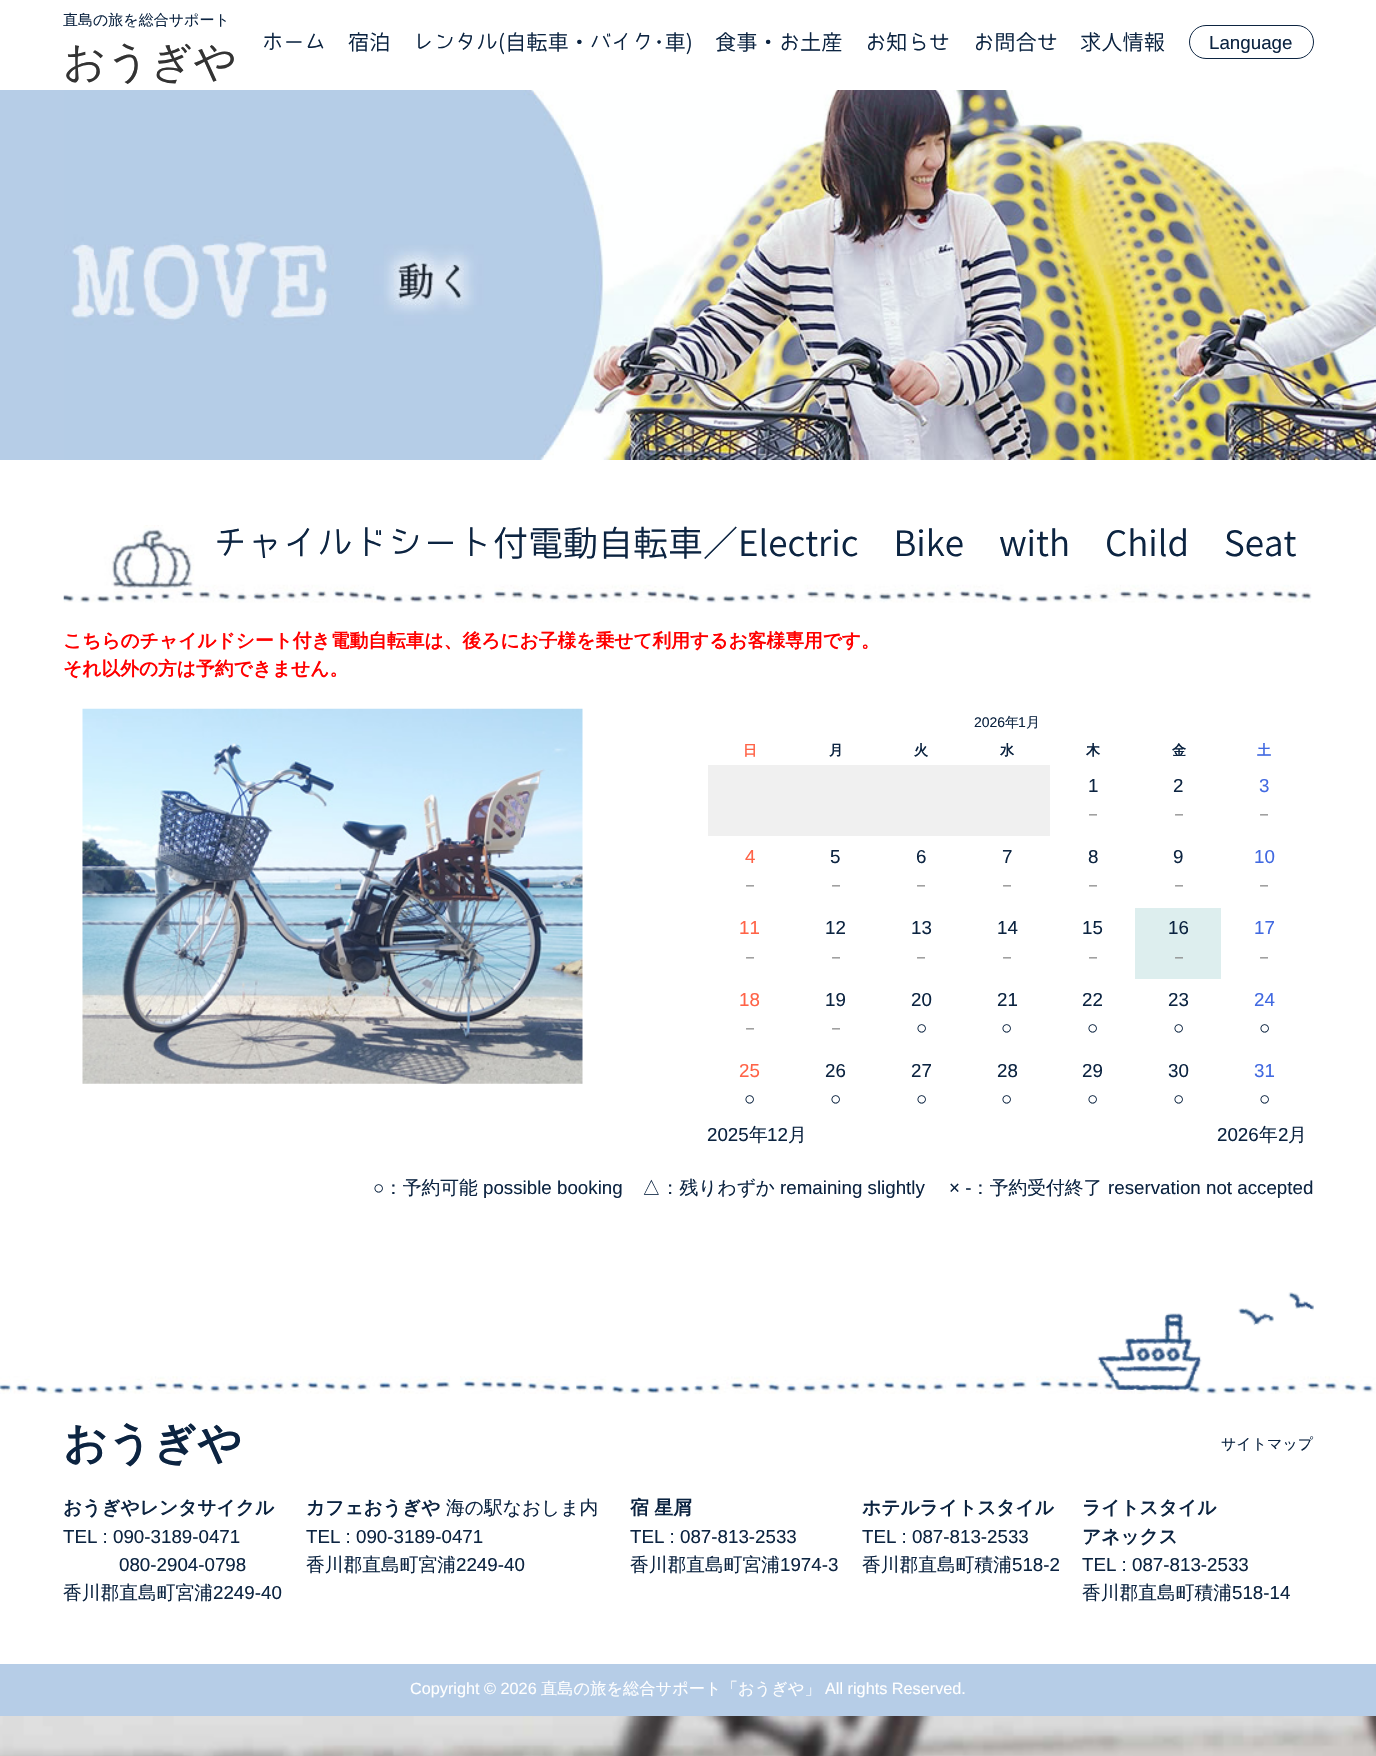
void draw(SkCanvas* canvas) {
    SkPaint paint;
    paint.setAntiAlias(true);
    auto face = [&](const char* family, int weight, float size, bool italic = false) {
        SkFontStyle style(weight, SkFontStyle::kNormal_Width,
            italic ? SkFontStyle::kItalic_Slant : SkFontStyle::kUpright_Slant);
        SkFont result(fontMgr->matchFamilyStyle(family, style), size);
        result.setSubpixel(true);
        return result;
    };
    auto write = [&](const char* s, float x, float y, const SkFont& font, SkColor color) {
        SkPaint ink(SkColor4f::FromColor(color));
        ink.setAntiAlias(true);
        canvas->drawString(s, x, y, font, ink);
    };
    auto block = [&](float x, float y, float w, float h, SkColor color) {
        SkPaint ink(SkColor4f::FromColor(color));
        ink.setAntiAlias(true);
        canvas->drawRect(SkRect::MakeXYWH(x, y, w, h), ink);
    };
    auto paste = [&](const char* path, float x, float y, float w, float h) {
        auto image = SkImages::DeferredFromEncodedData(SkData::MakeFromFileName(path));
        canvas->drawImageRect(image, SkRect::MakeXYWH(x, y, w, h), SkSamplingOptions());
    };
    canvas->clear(SK_ColorWHITE);
    paste("pic1.png", 0, 1716, 1376, 40);
    auto kFont1 = face("WenQuanYi Zen Hei", 500, 15);
    write("直島の旅を総合サポート", 63, 25, kFont1, SkColorSetRGB(12, 36, 65));
    auto kFont2 = face("WenQuanYi Zen Hei", 500, 42.5f);
    write("おうぎや", 63, 76, kFont2, SkColorSetRGB(51, 51, 51));
    auto kFont3 = face("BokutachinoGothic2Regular", 400, 21.25f);
    write("ホーム", 262, 50, kFont3, SkColorSetRGB(12, 36, 65));
    write("宿泊", 348, 50, kFont3, SkColorSetRGB(12, 36, 65));
    write("レンタル(自転車・バイク･車)", 413, 50, kFont3, SkColorSetRGB(12, 36, 65));
    write("食事・お土産", 715, 50, kFont3, SkColorSetRGB(12, 36, 65));
    write("お知らせ", 865, 50, kFont3, SkColorSetRGB(12, 36, 65));
    write("お問合せ", 973, 50, kFont3, SkColorSetRGB(12, 36, 65));
    write("求人情報", 1080, 50, kFont3, SkColorSetRGB(12, 36, 65));
    paint.setStyle(SkPaint::kStroke_Style);
    paint.setStrokeWidth(1);
    paint.setColor(SkColorSetRGB(12, 36, 65));
    canvas->drawRoundRect(SkRect::MakeXYWH(1189.5f, 25.5f, 124, 33), 16.5f, 16.5f, paint);
    auto kFont4 = face("Liberation Sans", 400, 18.75f);
    write("Language", 1209, 49, kFont4, SkColorSetRGB(12, 36, 65));
    block(0, 90, 64, 370, SkColorSetRGB(182, 205, 231));
    paste("pic2.png", 64, 90, 1312, 370);
    paste("pic3.png", 63, 525, 1249, 78);
    auto kFont5 = face("BokutachinoGothic2Regular", 400, 35);
    write("チャイルドシート付電動自転車／Electric Bike with Child Seat", 213, 556, kFont5, SkColorSetRGB(12, 36, 65));
    auto kFont6 = face("WenQuanYi Zen Hei", 700, 18.75f);
    write("こちらのチャイルドシート付き電動自転車は、後ろにお子様を乗せて利用するお客様専用です。", 63, 647, kFont6, SkColorSetRGB(255, 0, 0));
    write("それ以外の方は予約できません。", 63, 675, kFont6, SkColorSetRGB(255, 0, 0));
    paste("pic4.png", 82, 708, 501, 376);
    auto kFont7 = face("Liberation Sans", 400, 14);
    write("2026", 974, 727, kFont7, SkColorSetRGB(12, 36, 65));
    auto kFont8 = face("WenQuanYi Zen Hei", 500, 14);
    write("年", 1005, 727, kFont8, SkColorSetRGB(12, 36, 65));
    write("1", 1018, 727, kFont7, SkColorSetRGB(12, 36, 65));
    write("月", 1026, 727, kFont8, SkColorSetRGB(12, 36, 65));
    auto kFont9 = face("WenQuanYi Zen Hei", 700, 14);
    write("日", 743, 755, kFont9, SkColorSetRGB(255, 99, 71));
    write("月", 829, 755, kFont9, SkColorSetRGB(12, 36, 65));
    write("火", 914, 755, kFont9, SkColorSetRGB(12, 36, 65));
    write("水", 1000, 755, kFont9, SkColorSetRGB(12, 36, 65));
    write("木", 1086, 755, kFont9, SkColorSetRGB(12, 36, 65));
    write("金", 1172, 755, kFont9, SkColorSetRGB(12, 36, 65));
    write("土", 1257, 755, kFont9, SkColorSetRGB(65, 105, 225));
    block(708, 765, 342, 71, SkColorSetRGB(240, 240, 240));
    write("1", 1088, 792, kFont4, SkColorSetRGB(12, 36, 65));
    auto kFont10 = face("WenQuanYi Zen Hei", 500, 18);
    write("－", 1084, 820, kFont10, SkColorSetRGB(136, 136, 136));
    write("2", 1173, 792, kFont4, SkColorSetRGB(12, 36, 65));
    write("－", 1170, 820, kFont10, SkColorSetRGB(136, 136, 136));
    write("3", 1259, 792, kFont4, SkColorSetRGB(65, 105, 225));
    write("－", 1255, 820, kFont10, SkColorSetRGB(136, 136, 136));
    write("4", 745, 863, kFont4, SkColorSetRGB(255, 99, 71));
    write("－", 741, 891, kFont10, SkColorSetRGB(136, 136, 136));
    write("5", 830, 863, kFont4, SkColorSetRGB(12, 36, 65));
    write("－", 827, 891, kFont10, SkColorSetRGB(136, 136, 136));
    write("6", 916, 863, kFont4, SkColorSetRGB(12, 36, 65));
    write("－", 912, 891, kFont10, SkColorSetRGB(136, 136, 136));
    write("7", 1002, 863, kFont4, SkColorSetRGB(12, 36, 65));
    write("－", 998, 891, kFont10, SkColorSetRGB(136, 136, 136));
    write("8", 1088, 863, kFont4, SkColorSetRGB(12, 36, 65));
    write("－", 1084, 891, kFont10, SkColorSetRGB(136, 136, 136));
    write("9", 1173, 863, kFont4, SkColorSetRGB(12, 36, 65));
    write("－", 1170, 891, kFont10, SkColorSetRGB(136, 136, 136));
    write("10", 1254, 863, kFont4, SkColorSetRGB(65, 105, 225));
    write("－", 1255, 891, kFont10, SkColorSetRGB(136, 136, 136));
    write("11", 739, 934, kFont4, SkColorSetRGB(255, 99, 71));
    write("－", 741, 963, kFont10, SkColorSetRGB(136, 136, 136));
    write("12", 825, 934, kFont4, SkColorSetRGB(12, 36, 65));
    write("－", 827, 963, kFont10, SkColorSetRGB(136, 136, 136));
    write("13", 911, 934, kFont4, SkColorSetRGB(12, 36, 65));
    write("－", 912, 963, kFont10, SkColorSetRGB(136, 136, 136));
    write("14", 997, 934, kFont4, SkColorSetRGB(12, 36, 65));
    write("－", 998, 963, kFont10, SkColorSetRGB(136, 136, 136));
    write("15", 1082, 934, kFont4, SkColorSetRGB(12, 36, 65));
    write("－", 1084, 963, kFont10, SkColorSetRGB(136, 136, 136));
    block(1135, 908, 86, 71, SkColorSetRGB(221, 238, 238));
    write("16", 1168, 934, kFont4, SkColorSetRGB(12, 36, 65));
    write("－", 1170, 963, kFont10, SkColorSetRGB(136, 136, 136));
    write("17", 1254, 934, kFont4, SkColorSetRGB(65, 105, 225));
    write("－", 1255, 963, kFont10, SkColorSetRGB(136, 136, 136));
    write("18", 739, 1006, kFont4, SkColorSetRGB(255, 99, 71));
    write("－", 741, 1034, kFont10, SkColorSetRGB(136, 136, 136));
    write("19", 825, 1006, kFont4, SkColorSetRGB(12, 36, 65));
    write("－", 827, 1034, kFont10, SkColorSetRGB(136, 136, 136));
    write("20", 911, 1006, kFont4, SkColorSetRGB(12, 36, 65));
    write("○", 916, 1034, kFont4, SkColorSetRGB(12, 36, 65));
    write("21", 997, 1006, kFont4, SkColorSetRGB(12, 36, 65));
    write("○", 1001, 1034, kFont4, SkColorSetRGB(12, 36, 65));
    write("22", 1082, 1006, kFont4, SkColorSetRGB(12, 36, 65));
    write("○", 1087, 1034, kFont4, SkColorSetRGB(12, 36, 65));
    write("23", 1168, 1006, kFont4, SkColorSetRGB(12, 36, 65));
    write("○", 1173, 1034, kFont4, SkColorSetRGB(12, 36, 65));
    write("24", 1254, 1006, kFont4, SkColorSetRGB(65, 105, 225));
    write("○", 1259, 1034, kFont4, SkColorSetRGB(12, 36, 65));
    write("25", 739, 1077, kFont4, SkColorSetRGB(255, 99, 71));
    write("○", 744, 1105, kFont4, SkColorSetRGB(12, 36, 65));
    write("26", 825, 1077, kFont4, SkColorSetRGB(12, 36, 65));
    write("○", 830, 1105, kFont4, SkColorSetRGB(12, 36, 65));
    write("27", 911, 1077, kFont4, SkColorSetRGB(12, 36, 65));
    write("○", 916, 1105, kFont4, SkColorSetRGB(12, 36, 65));
    write("28", 997, 1077, kFont4, SkColorSetRGB(12, 36, 65));
    write("○", 1001, 1105, kFont4, SkColorSetRGB(12, 36, 65));
    write("29", 1082, 1077, kFont4, SkColorSetRGB(12, 36, 65));
    write("○", 1087, 1105, kFont4, SkColorSetRGB(12, 36, 65));
    write("30", 1168, 1077, kFont4, SkColorSetRGB(12, 36, 65));
    write("○", 1173, 1105, kFont4, SkColorSetRGB(12, 36, 65));
    write("31", 1254, 1077, kFont4, SkColorSetRGB(65, 105, 225));
    write("○", 1259, 1105, kFont4, SkColorSetRGB(12, 36, 65));
    write("2025", 707, 1141, kFont4, SkColorSetRGB(12, 36, 65));
    auto kFont11 = face("WenQuanYi Zen Hei", 500, 18.75f);
    write("年", 749, 1141, kFont11, SkColorSetRGB(12, 36, 65));
    write("12", 767, 1141, kFont4, SkColorSetRGB(12, 36, 65));
    write("月", 788, 1141, kFont11, SkColorSetRGB(12, 36, 65));
    write("2026", 1217, 1141, kFont4, SkColorSetRGB(12, 36, 65));
    write("年", 1259, 1141, kFont11, SkColorSetRGB(12, 36, 65));
    write("2", 1278, 1141, kFont4, SkColorSetRGB(12, 36, 65));
    write("月", 1288, 1141, kFont11, SkColorSetRGB(12, 36, 65));
    write("○", 373, 1194, kFont4, SkColorSetRGB(12, 36, 65));
    write("：予約可能", 384, 1194, kFont11, SkColorSetRGB(12, 36, 65));
    write("possible booking", 483, 1194, kFont4, SkColorSetRGB(12, 36, 65));
    write("△：残りわずか", 642, 1194, kFont11, SkColorSetRGB(12, 36, 65));
    write("remaining slightly", 780, 1194, kFont4, SkColorSetRGB(12, 36, 65));
    write("× -", 949, 1194, kFont4, SkColorSetRGB(12, 36, 65));
    write("：予約受付終了", 971, 1194, kFont11, SkColorSetRGB(12, 36, 65));
    write("reservation not accepted", 1108, 1194, kFont4, SkColorSetRGB(12, 36, 65));
    paste("pic5.png", 0, 1376, 1376, 18);
    paste("pic6.png", 1097, 1292, 217, 98);
    auto kFont12 = face("WenQuanYi Zen Hei", 700, 43.75f);
    write("おうぎや", 63, 1458, kFont12, SkColorSetRGB(12, 36, 65));
    write("サイトマップ", 1221, 1449, kFont1, SkColorSetRGB(12, 36, 65));
    write("おうぎやレンタサイクル", 63, 1514, kFont6, SkColorSetRGB(12, 36, 65));
    write("TEL : 090-3189-0471", 63, 1543, kFont4, SkColorSetRGB(12, 36, 65));
    write("080-2904-0798", 119, 1571, kFont4, SkColorSetRGB(12, 36, 65));
    write("香川郡直島町宮浦", 63, 1599, kFont11, SkColorSetRGB(12, 36, 65));
    write("2249-40", 213, 1599, kFont4, SkColorSetRGB(12, 36, 65));
    write("カフェおうぎや", 306, 1514, kFont6, SkColorSetRGB(12, 36, 65));
    write("海の駅なおしま内", 446, 1514, kFont11, SkColorSetRGB(12, 36, 65));
    write("TEL : 090-3189-0471", 306, 1543, kFont4, SkColorSetRGB(12, 36, 65));
    write("香川郡直島町宮浦", 306, 1571, kFont11, SkColorSetRGB(12, 36, 65));
    write("2249-40", 456, 1571, kFont4, SkColorSetRGB(12, 36, 65));
    write("宿 星屑", 630, 1514, kFont6, SkColorSetRGB(12, 36, 65));
    write("TEL : 087-813-2533", 630, 1543, kFont4, SkColorSetRGB(12, 36, 65));
    write("香川郡直島町宮浦", 630, 1571, kFont11, SkColorSetRGB(12, 36, 65));
    write("1974-3", 780, 1571, kFont4, SkColorSetRGB(12, 36, 65));
    write("ホテルライトスタイル", 862, 1514, kFont6, SkColorSetRGB(12, 36, 65));
    write("TEL : 087-813-2533", 862, 1543, kFont4, SkColorSetRGB(12, 36, 65));
    write("香川郡直島町積浦", 862, 1571, kFont11, SkColorSetRGB(12, 36, 65));
    write("518-2", 1012, 1571, kFont4, SkColorSetRGB(12, 36, 65));
    write("ライトスタイル", 1082, 1514, kFont6, SkColorSetRGB(12, 36, 65));
    write("アネックス", 1082, 1543, kFont6, SkColorSetRGB(12, 36, 65));
    write("TEL : 087-813-2533", 1082, 1571, kFont4, SkColorSetRGB(12, 36, 65));
    write("香川郡直島町積浦", 1082, 1599, kFont11, SkColorSetRGB(12, 36, 65));
    write("518-14", 1232, 1599, kFont4, SkColorSetRGB(12, 36, 65));
    block(0, 1664, 1376, 52, SkColorSetRGB(182, 205, 231));
    auto kFont13 = face("Liberation Sans", 400, 16.25f);
    write("Copyright © 2026", 410, 1694, kFont13, SK_ColorWHITE);
    auto kFont14 = face("WenQuanYi Zen Hei", 500, 16.25f);
    write("直島の旅を総合サポート「おうぎや」", 541, 1694, kFont14, SK_ColorWHITE);
    write("All rights Reserved.", 825, 1694, kFont13, SK_ColorWHITE);
}
